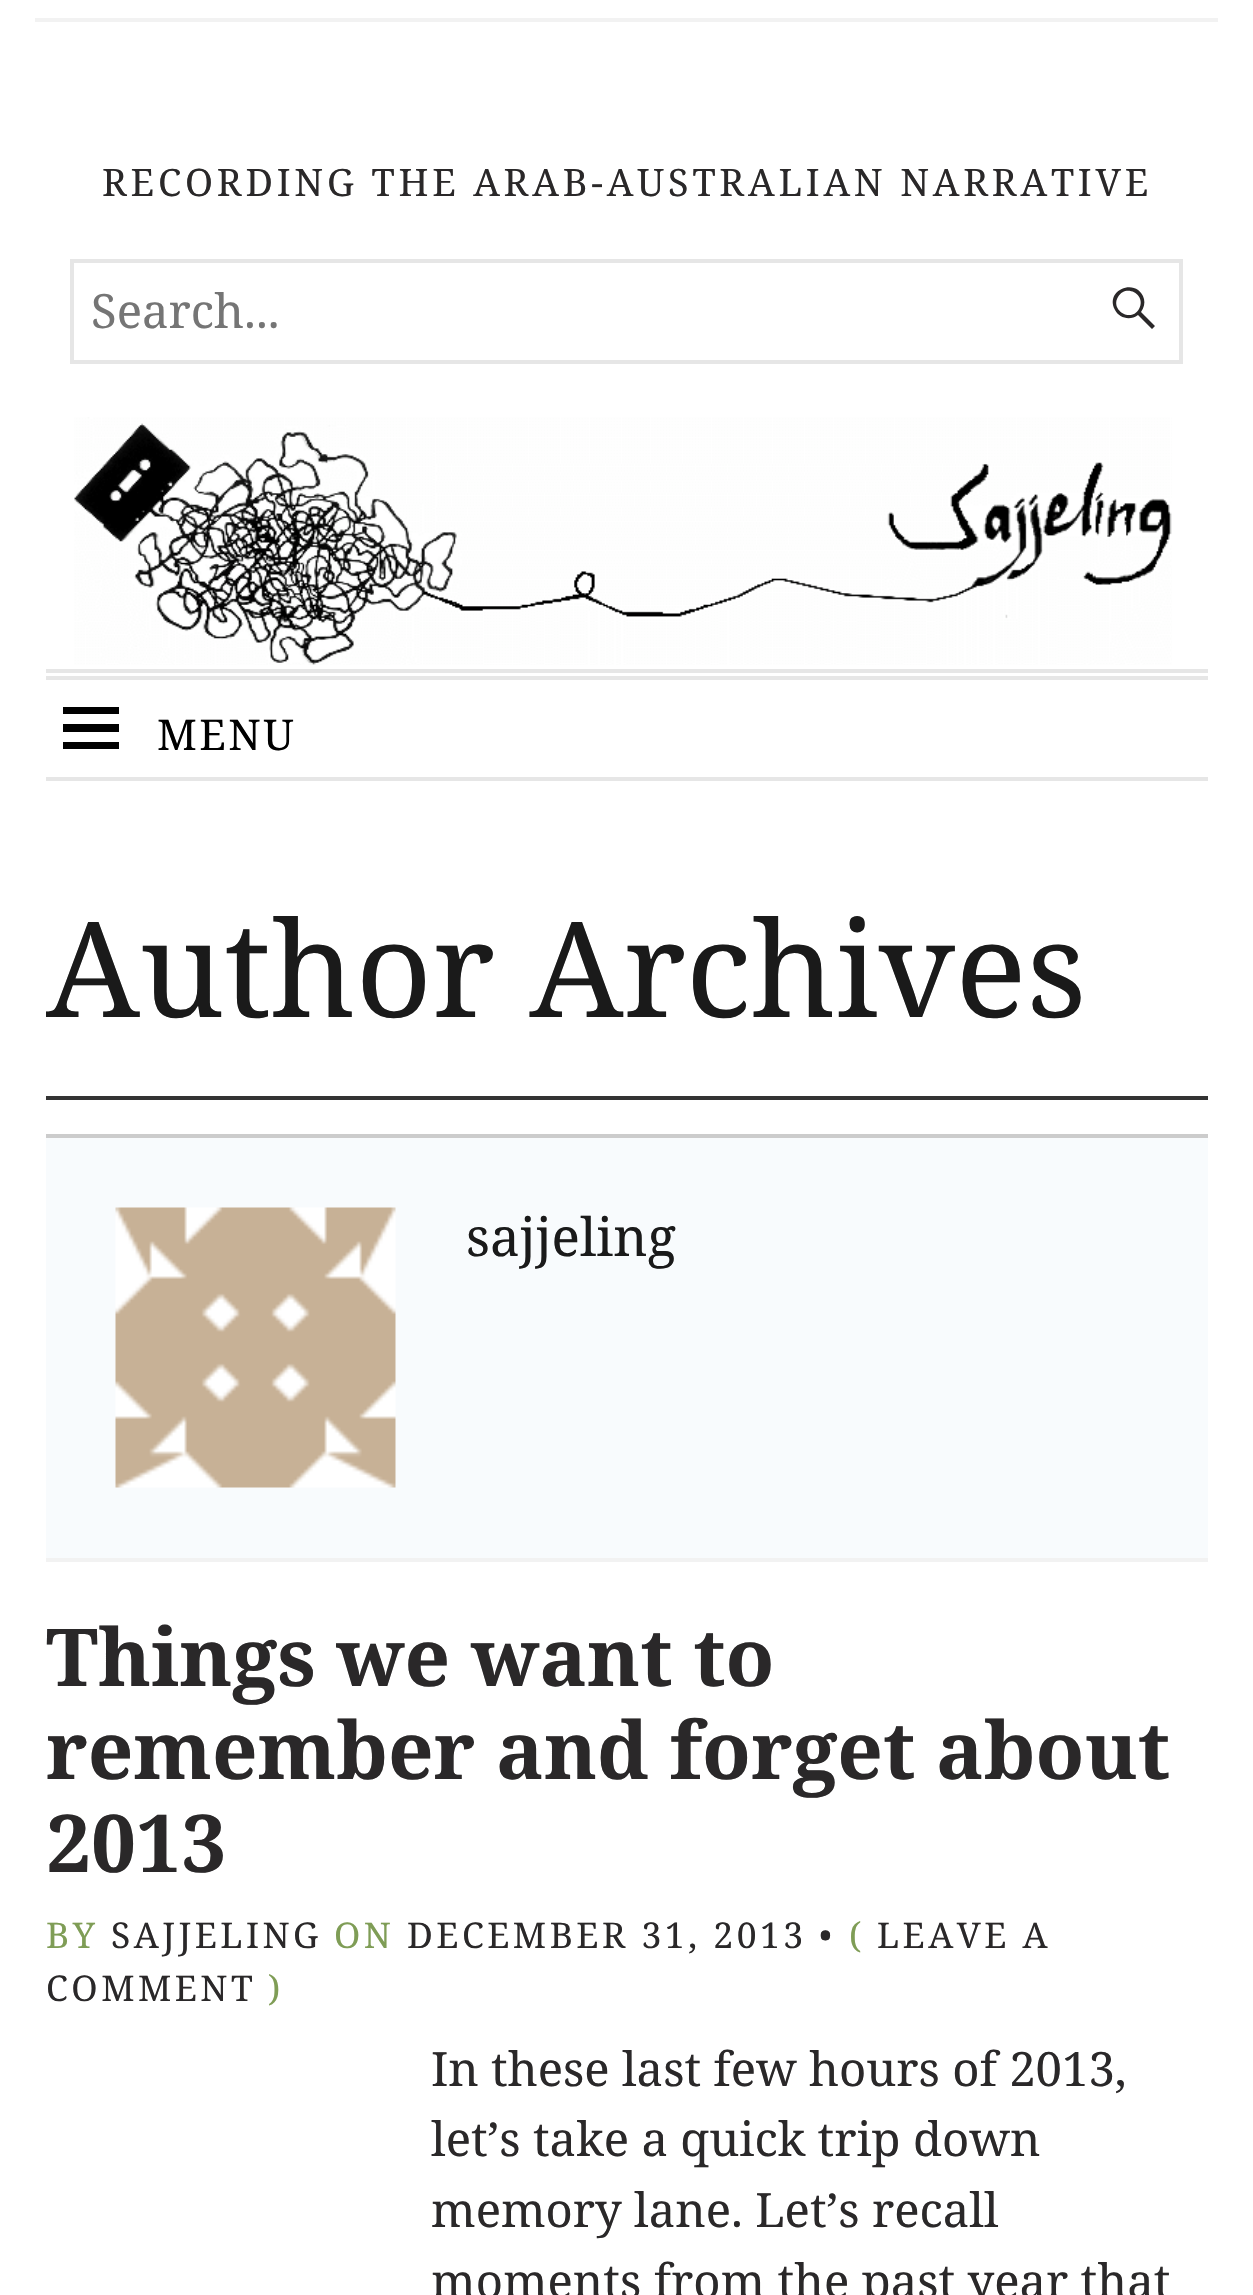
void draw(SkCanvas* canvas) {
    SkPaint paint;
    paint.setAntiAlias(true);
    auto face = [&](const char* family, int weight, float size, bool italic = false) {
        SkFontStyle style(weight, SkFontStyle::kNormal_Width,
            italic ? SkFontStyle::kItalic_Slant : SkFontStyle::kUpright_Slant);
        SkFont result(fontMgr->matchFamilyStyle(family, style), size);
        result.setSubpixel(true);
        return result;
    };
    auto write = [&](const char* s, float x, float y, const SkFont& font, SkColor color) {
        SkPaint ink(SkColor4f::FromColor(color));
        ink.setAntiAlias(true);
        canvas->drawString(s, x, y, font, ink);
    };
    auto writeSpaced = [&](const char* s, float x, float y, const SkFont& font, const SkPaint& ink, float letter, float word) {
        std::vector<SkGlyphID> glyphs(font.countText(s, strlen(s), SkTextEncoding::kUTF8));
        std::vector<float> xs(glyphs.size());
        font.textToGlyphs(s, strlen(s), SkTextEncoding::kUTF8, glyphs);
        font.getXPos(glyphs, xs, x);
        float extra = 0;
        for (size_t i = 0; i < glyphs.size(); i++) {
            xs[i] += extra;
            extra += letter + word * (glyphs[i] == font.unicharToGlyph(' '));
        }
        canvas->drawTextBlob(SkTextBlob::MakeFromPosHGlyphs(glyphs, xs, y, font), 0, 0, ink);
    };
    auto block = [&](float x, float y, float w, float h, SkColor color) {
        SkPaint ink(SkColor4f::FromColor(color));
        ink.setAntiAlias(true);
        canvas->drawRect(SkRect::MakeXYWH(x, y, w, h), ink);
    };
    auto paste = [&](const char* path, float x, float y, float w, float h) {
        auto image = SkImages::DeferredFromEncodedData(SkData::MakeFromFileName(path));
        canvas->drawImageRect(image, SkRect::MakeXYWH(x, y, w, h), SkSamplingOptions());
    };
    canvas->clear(SK_ColorWHITE);
    block(35, 18, 1183, 4, SkColorSetRGB(242, 242, 242));
    auto kFont1 = face("Noto Serif", 400, 37.8f);
    paint.setColor(SkColorSetRGB(42, 40, 41));
    writeSpaced("RECORDING THE ARAB-AUSTRALIAN NARRATIVE", 102, 196, kFont1, paint, 3.8f, 0);
    paint.setStyle(SkPaint::kStroke_Style);
    paint.setStrokeWidth(4);
    paint.setColor(SkColorSetRGB(230, 230, 230));
    canvas->drawRect(SkRect::MakeXYWH(72, 261, 1109, 101), paint);
    auto kFont2 = face("Noto Serif", 400, 47.25f);
    write("Search...", 91, 328, kFont2, SkColorSetRGB(117, 117, 117));
    paint.setStyle(SkPaint::kFill_Style);
    paint.setColor(SkColorSetRGB(42, 40, 41));
    canvas->drawPath(SkPathBuilder().moveTo(1155, 326).lineTo(1152, 329).lineTo(1138, 315).cubicTo(1130, 321, 1119, 318, 1115, 310).cubicTo(1104, 289, 1138, 277, 1144, 299).cubicTo(1145, 303, 1144, 308, 1141, 312).close().moveTo(1118, 297).cubicTo(1110, 310, 1131, 323, 1139, 309).cubicTo(1147, 295, 1126, 283, 1118, 297).close().detach(), paint);
    paste("pic1.png", 74, 417, 1098, 248);
    block(46, 669, 1162, 4, SkColorSetRGB(230, 230, 230));
    block(46, 676, 1162, 4, SkColorSetRGB(230, 230, 230));
    block(46, 777, 1162, 4, SkColorSetRGB(230, 230, 230));
    paint.setColor(SK_ColorBLACK);
    canvas->drawPath(SkPathBuilder().moveTo(63, 749).lineTo(63, 742).lineTo(119, 742).lineTo(119, 749).close().moveTo(63, 707).lineTo(119, 707).lineTo(119, 714).lineTo(63, 714).close().moveTo(63, 732).lineTo(63, 724).lineTo(119, 724).lineTo(119, 732).close().detach(), paint);
    auto kFont3 = face("Noto Serif", 400, 42.5f);
    writeSpaced("MENU", 157, 750, kFont3, paint, 2.5f, 0);
    auto kFont4 = face("Noto Serif", 400, 133);
    write("Author Archives", 46, 1017, kFont4, SkColorSetRGB(26, 26, 26));
    block(46, 1096, 1162, 4, SkColorSetRGB(51, 51, 51));
    block(46, 1138, 1162, 420, SkColorSetRGB(248, 251, 253));
    block(46, 1134, 1162, 4, SkColorSetRGB(204, 204, 204));
    block(46, 1558, 1162, 4, SkColorSetRGB(242, 242, 242));
    paste("pic2.png", 115, 1207, 281, 281);
    auto kFont5 = face("Noto Serif", 400, 53);
    write("sajjeling", 466, 1256, kFont5, SkColorSetRGB(26, 26, 26));
    auto kFont6 = face("Noto Serif", 700, 79.75f);
    write("Things we want to", 46, 1686, kFont6, SkColorSetRGB(42, 40, 41));
    write("remember and forget about", 46, 1779, kFont6, SkColorSetRGB(42, 40, 41));
    write("2013", 46, 1872, kFont6, SkColorSetRGB(42, 40, 41));
    auto kFont7 = face("Noto Serif", 400, 35.5f);
    paint.setColor(SkColorSetRGB(127, 157, 86));
    writeSpaced("BY", 46, 1948, kFont7, paint, 3.5f, 0);
    paint.setColor(SkColorSetRGB(42, 40, 41));
    writeSpaced("SAJJELING", 111, 1948, kFont7, paint, 3.5f, 0);
    paint.setColor(SkColorSetRGB(127, 157, 86));
    writeSpaced("ON", 334, 1948, kFont7, paint, 3.5f, 0);
    paint.setColor(SkColorSetRGB(42, 40, 41));
    writeSpaced("DECEMBER 31, 2013", 407, 1948, kFont7, paint, 3.5f, 0);
    writeSpaced("•", 819, 1948, kFont7, paint, 3.5f, 0);
    paint.setColor(SkColorSetRGB(127, 157, 86));
    writeSpaced("(", 849, 1948, kFont7, paint, 3.5f, 0);
    paint.setColor(SkColorSetRGB(42, 40, 41));
    writeSpaced("LEAVE A", 877, 1948, kFont7, paint, 3.5f, 0);
    writeSpaced("COMMENT", 46, 2001, kFont7, paint, 3.5f, 0);
    paint.setColor(SkColorSetRGB(127, 157, 86));
    writeSpaced(")", 268, 2001, kFont7, paint, 3.5f, 0);
    write("In these last few hours of 2013,", 431, 2086, kFont2, SkColorSetRGB(42, 40, 41));
    write("let’s take a quick trip down", 431, 2156, kFont2, SkColorSetRGB(42, 40, 41));
    write("memory lane. Let’s recall", 431, 2227, kFont2, SkColorSetRGB(42, 40, 41));
    write("moments from the past year that", 431, 2298, kFont2, SkColorSetRGB(42, 40, 41));
}
